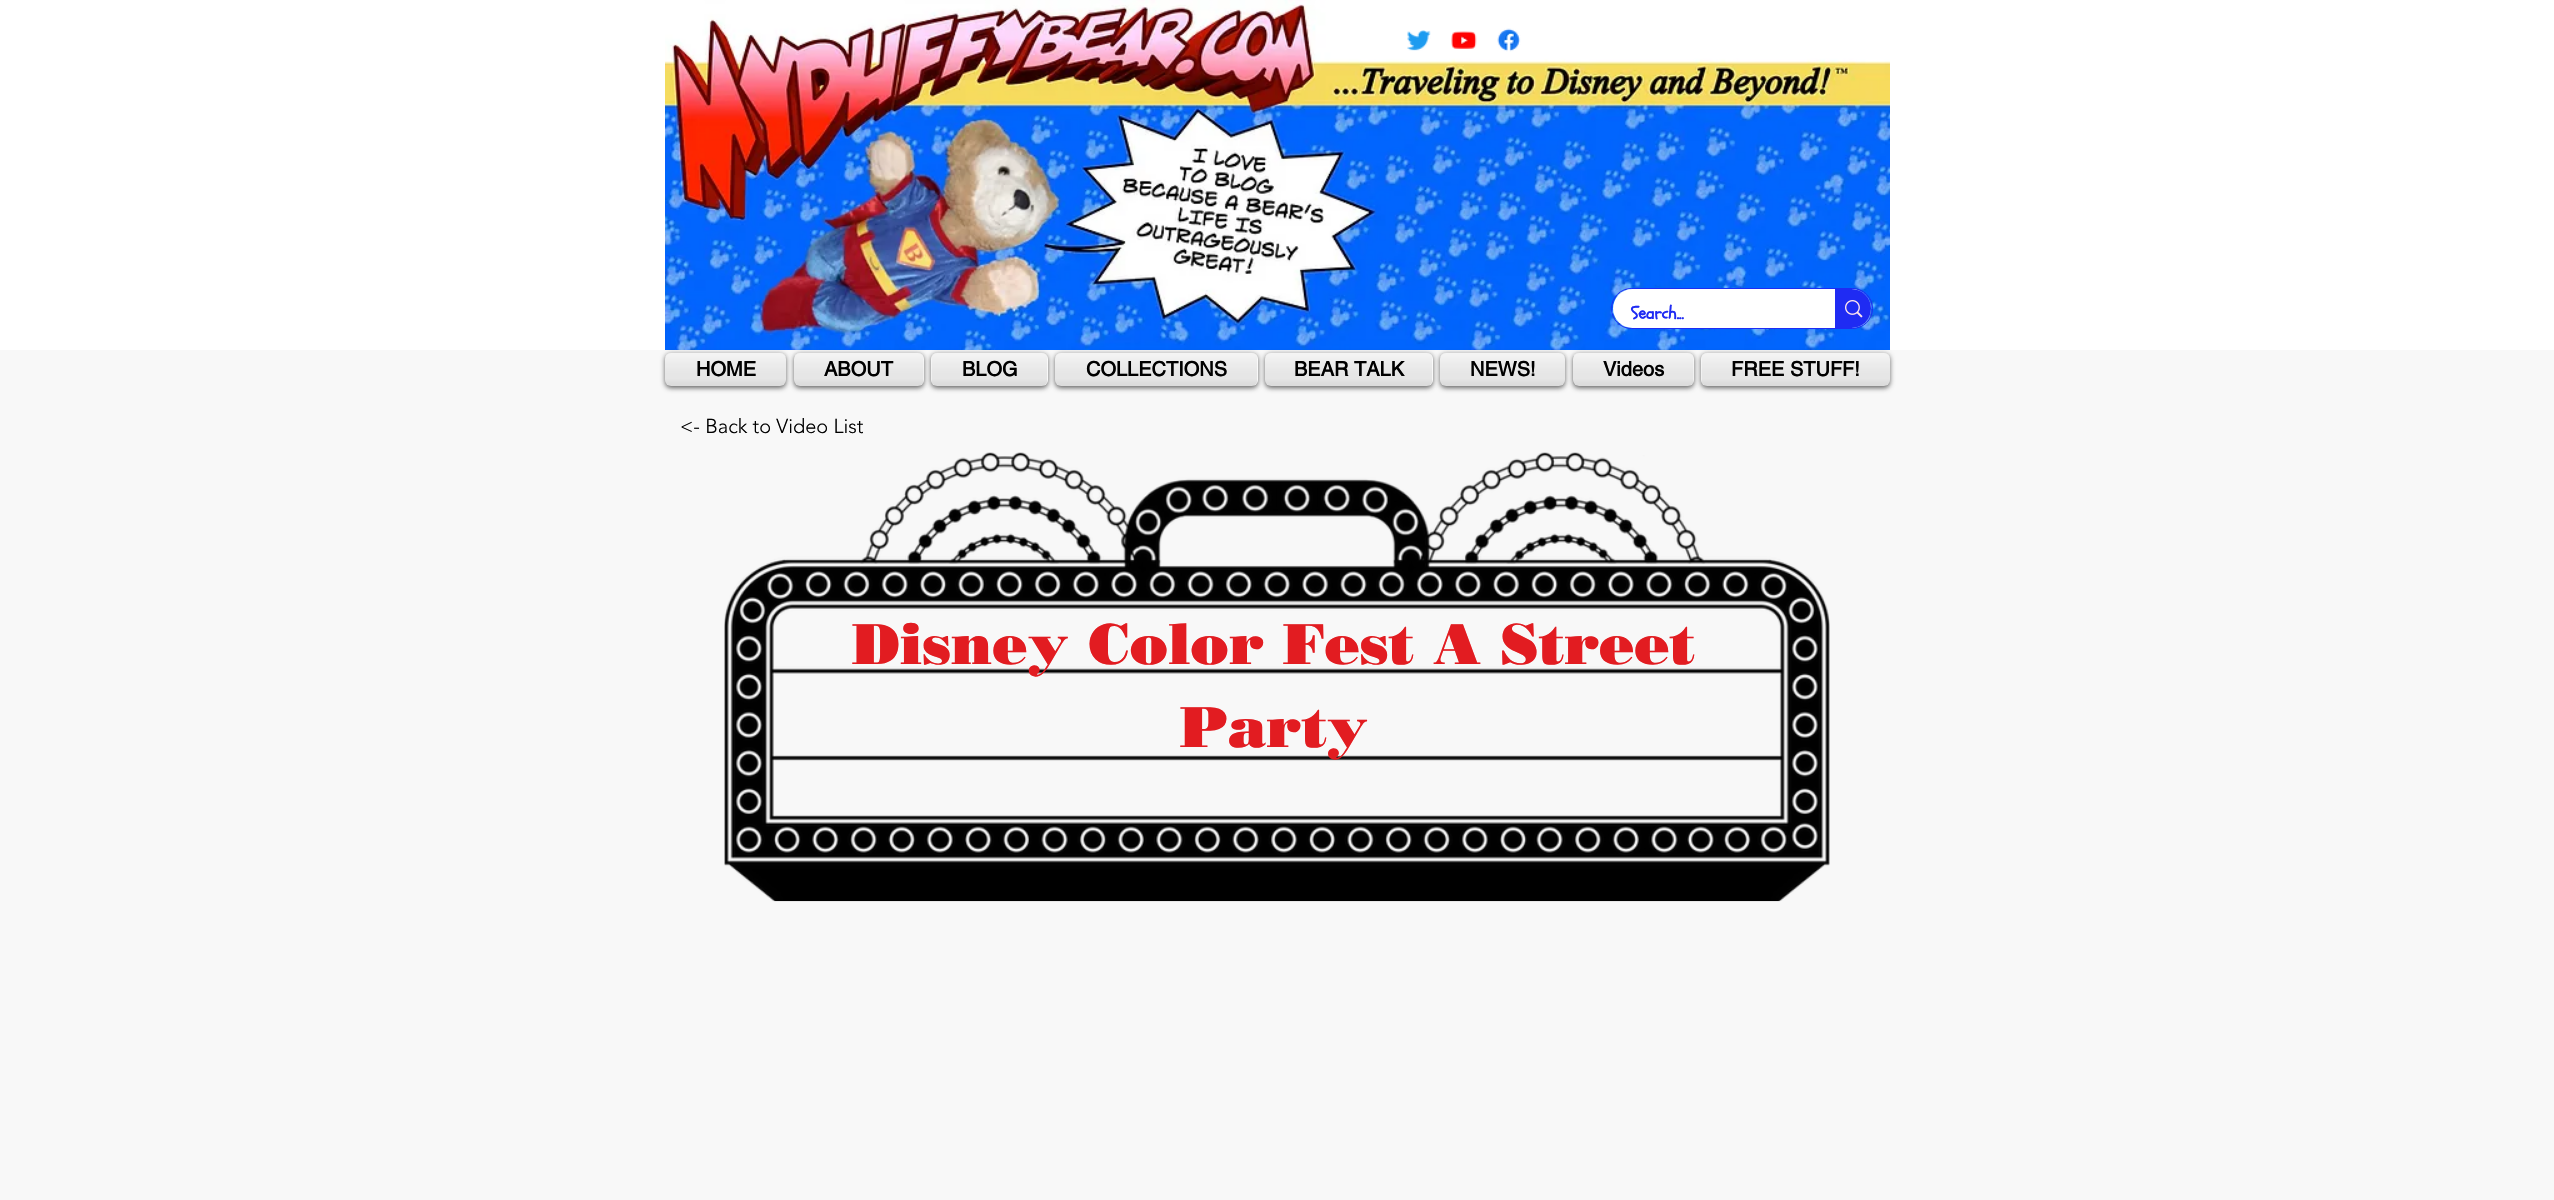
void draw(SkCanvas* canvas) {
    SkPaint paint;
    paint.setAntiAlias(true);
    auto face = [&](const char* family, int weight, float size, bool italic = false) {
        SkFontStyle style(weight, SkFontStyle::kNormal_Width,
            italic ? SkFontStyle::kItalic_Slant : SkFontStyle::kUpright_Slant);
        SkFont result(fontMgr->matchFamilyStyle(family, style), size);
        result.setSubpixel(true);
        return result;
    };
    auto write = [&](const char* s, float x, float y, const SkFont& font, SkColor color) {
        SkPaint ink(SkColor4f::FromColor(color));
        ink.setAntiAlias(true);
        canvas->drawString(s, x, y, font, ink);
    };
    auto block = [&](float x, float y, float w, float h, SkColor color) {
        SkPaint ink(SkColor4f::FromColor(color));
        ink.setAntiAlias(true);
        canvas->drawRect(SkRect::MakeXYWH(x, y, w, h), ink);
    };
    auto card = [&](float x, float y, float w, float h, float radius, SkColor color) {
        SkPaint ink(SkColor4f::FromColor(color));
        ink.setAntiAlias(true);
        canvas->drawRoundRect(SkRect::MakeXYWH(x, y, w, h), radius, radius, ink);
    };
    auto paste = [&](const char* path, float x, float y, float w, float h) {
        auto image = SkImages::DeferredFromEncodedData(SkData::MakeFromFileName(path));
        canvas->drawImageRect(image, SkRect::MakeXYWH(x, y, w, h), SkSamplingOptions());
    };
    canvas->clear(SK_ColorWHITE);
    paste("pic1.png", 665, 0, 1225, 350);
    paste("pic2.png", 1407, 30, 24, 21);
    paste("pic3.png", 1451, 31, 26, 18);
    paste("pic4.png", 1497, 28, 24, 24);
    paint.setStyle(SkPaint::kStroke_Style);
    paint.setStrokeWidth(1);
    paint.setColor(SkColorSetRGB(31, 43, 243));
    canvas->drawRoundRect(SkRect::MakeXYWH(1611.5f, 288.5f, 261, 40), 20, 20, paint);
    card(1613, 289, 258, 39, 19.5f, SK_ColorWHITE);
    auto kFont1 = face("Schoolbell", 700, 17.5f);
    write("Search...", 1631, 319, kFont1, SkColorSetRGB(31, 43, 243));
    paint.setStyle(SkPaint::kFill_Style);
    canvas->drawPath(SkPathBuilder().moveTo(1835, 289).lineTo(1851.5f, 289).cubicTo(1862.5f, 289, 1871, 297.5f, 1871, 308.5f).cubicTo(1871, 319.5f, 1862.5f, 328, 1851.5f, 328).lineTo(1835, 328).close().detach(), paint);
    paste("pic5.png", 1845, 300, 18, 18);
    block(0, 350, 2554, 850, SkColorSetRGB(248, 248, 248));
    paint.setColor(SkColorSetARGB(153, 0, 0, 0));
    paint.setMaskFilter(SkMaskFilter::MakeBlur(kNormal_SkBlurStyle, 2.5f));
    canvas->drawRoundRect(SkRect::MakeXYWH(665, 354, 121, 34), 6, 6, paint);
    paint.setMaskFilter(nullptr);
    card(665, 353, 121, 33, 6, SK_ColorWHITE);
    paste("pic6.png", 665, 352, 121, 5);
    paste("pic7.png", 665, 353, 121, 33);
    auto kFont2 = face("helvetica", 700, 20);
    write("HOME", 696, 376, kFont2, SK_ColorBLACK);
    paint.setMaskFilter(SkMaskFilter::MakeBlur(kNormal_SkBlurStyle, 2.5f));
    canvas->drawRoundRect(SkRect::MakeXYWH(794, 354, 130, 34), 6, 6, paint);
    paint.setMaskFilter(nullptr);
    card(794, 353, 130, 33, 6, SK_ColorWHITE);
    paste("pic8.png", 794, 352, 129, 4);
    paste("pic9.png", 794, 353, 130, 33);
    write("ABOUT", 824, 376, kFont2, SK_ColorBLACK);
    paint.setMaskFilter(SkMaskFilter::MakeBlur(kNormal_SkBlurStyle, 2.5f));
    canvas->drawRoundRect(SkRect::MakeXYWH(931, 354, 117, 34), 6, 6, paint);
    paint.setMaskFilter(nullptr);
    card(931, 353, 117, 33, 6, SK_ColorWHITE);
    paste("pic10.png", 932, 352, 115, 3);
    paste("pic11.png", 931, 353, 117, 33);
    write("BLOG", 962, 376, kFont2, SK_ColorBLACK);
    paint.setMaskFilter(SkMaskFilter::MakeBlur(kNormal_SkBlurStyle, 2.5f));
    canvas->drawRoundRect(SkRect::MakeXYWH(1055, 354, 203, 34), 6, 6, paint);
    paint.setMaskFilter(nullptr);
    card(1055, 353, 203, 33, 6, SK_ColorWHITE);
    paste("pic12.png", 1055, 352, 202, 5);
    paste("pic13.png", 1055, 353, 203, 33);
    write("COLLECTIONS", 1086, 376, kFont2, SK_ColorBLACK);
    paint.setMaskFilter(SkMaskFilter::MakeBlur(kNormal_SkBlurStyle, 2.5f));
    canvas->drawRoundRect(SkRect::MakeXYWH(1265, 354, 168, 34), 6, 6, paint);
    paint.setMaskFilter(nullptr);
    card(1265, 353, 168, 33, 6, SK_ColorWHITE);
    paste("pic14.png", 1265, 352, 167, 5);
    paste("pic15.png", 1265, 353, 168, 33);
    write("BEAR TALK", 1294, 376, kFont2, SK_ColorBLACK);
    paint.setMaskFilter(SkMaskFilter::MakeBlur(kNormal_SkBlurStyle, 2.5f));
    canvas->drawRoundRect(SkRect::MakeXYWH(1440, 354, 125, 34), 6, 6, paint);
    paint.setMaskFilter(nullptr);
    card(1440, 353, 125, 33, 6, SK_ColorWHITE);
    paste("pic16.png", 1440, 352, 125, 5);
    paste("pic17.png", 1440, 353, 125, 33);
    write("NEWS!", 1470, 376, kFont2, SK_ColorBLACK);
    paint.setMaskFilter(SkMaskFilter::MakeBlur(kNormal_SkBlurStyle, 2.5f));
    canvas->drawRoundRect(SkRect::MakeXYWH(1573, 354, 121, 34), 6, 6, paint);
    paint.setMaskFilter(nullptr);
    card(1573, 353, 121, 33, 6, SK_ColorWHITE);
    paste("pic18.png", 1573, 352, 120, 4);
    paste("pic19.png", 1572, 353, 122, 33);
    write("Videos", 1603, 376, kFont2, SK_ColorBLACK);
    paint.setMaskFilter(SkMaskFilter::MakeBlur(kNormal_SkBlurStyle, 2.5f));
    canvas->drawRoundRect(SkRect::MakeXYWH(1701, 354, 189, 34), 6, 6, paint);
    paint.setMaskFilter(nullptr);
    card(1701, 353, 189, 33, 6, SK_ColorWHITE);
    paste("pic20.png", 1702, 352, 188, 5);
    paste("pic21.png", 1701, 353, 189, 33);
    write("FREE STUFF!", 1731, 376, kFont2, SK_ColorBLACK);
    auto kFont3 = face("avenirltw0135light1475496", 300, 20);
    write("<- Back to Video List", 680, 433, kFont3, SK_ColorBLACK);
    paste("pic22.png", 724, 452, 1106, 450);
    auto kFont4 = face("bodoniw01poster", 900, 57.5f);
    write("Disney Color Fest A Street", 852, 664, kFont4, SkColorSetRGB(226, 28, 33));
    write("Party", 1180, 747, kFont4, SkColorSetRGB(226, 28, 33));
}
